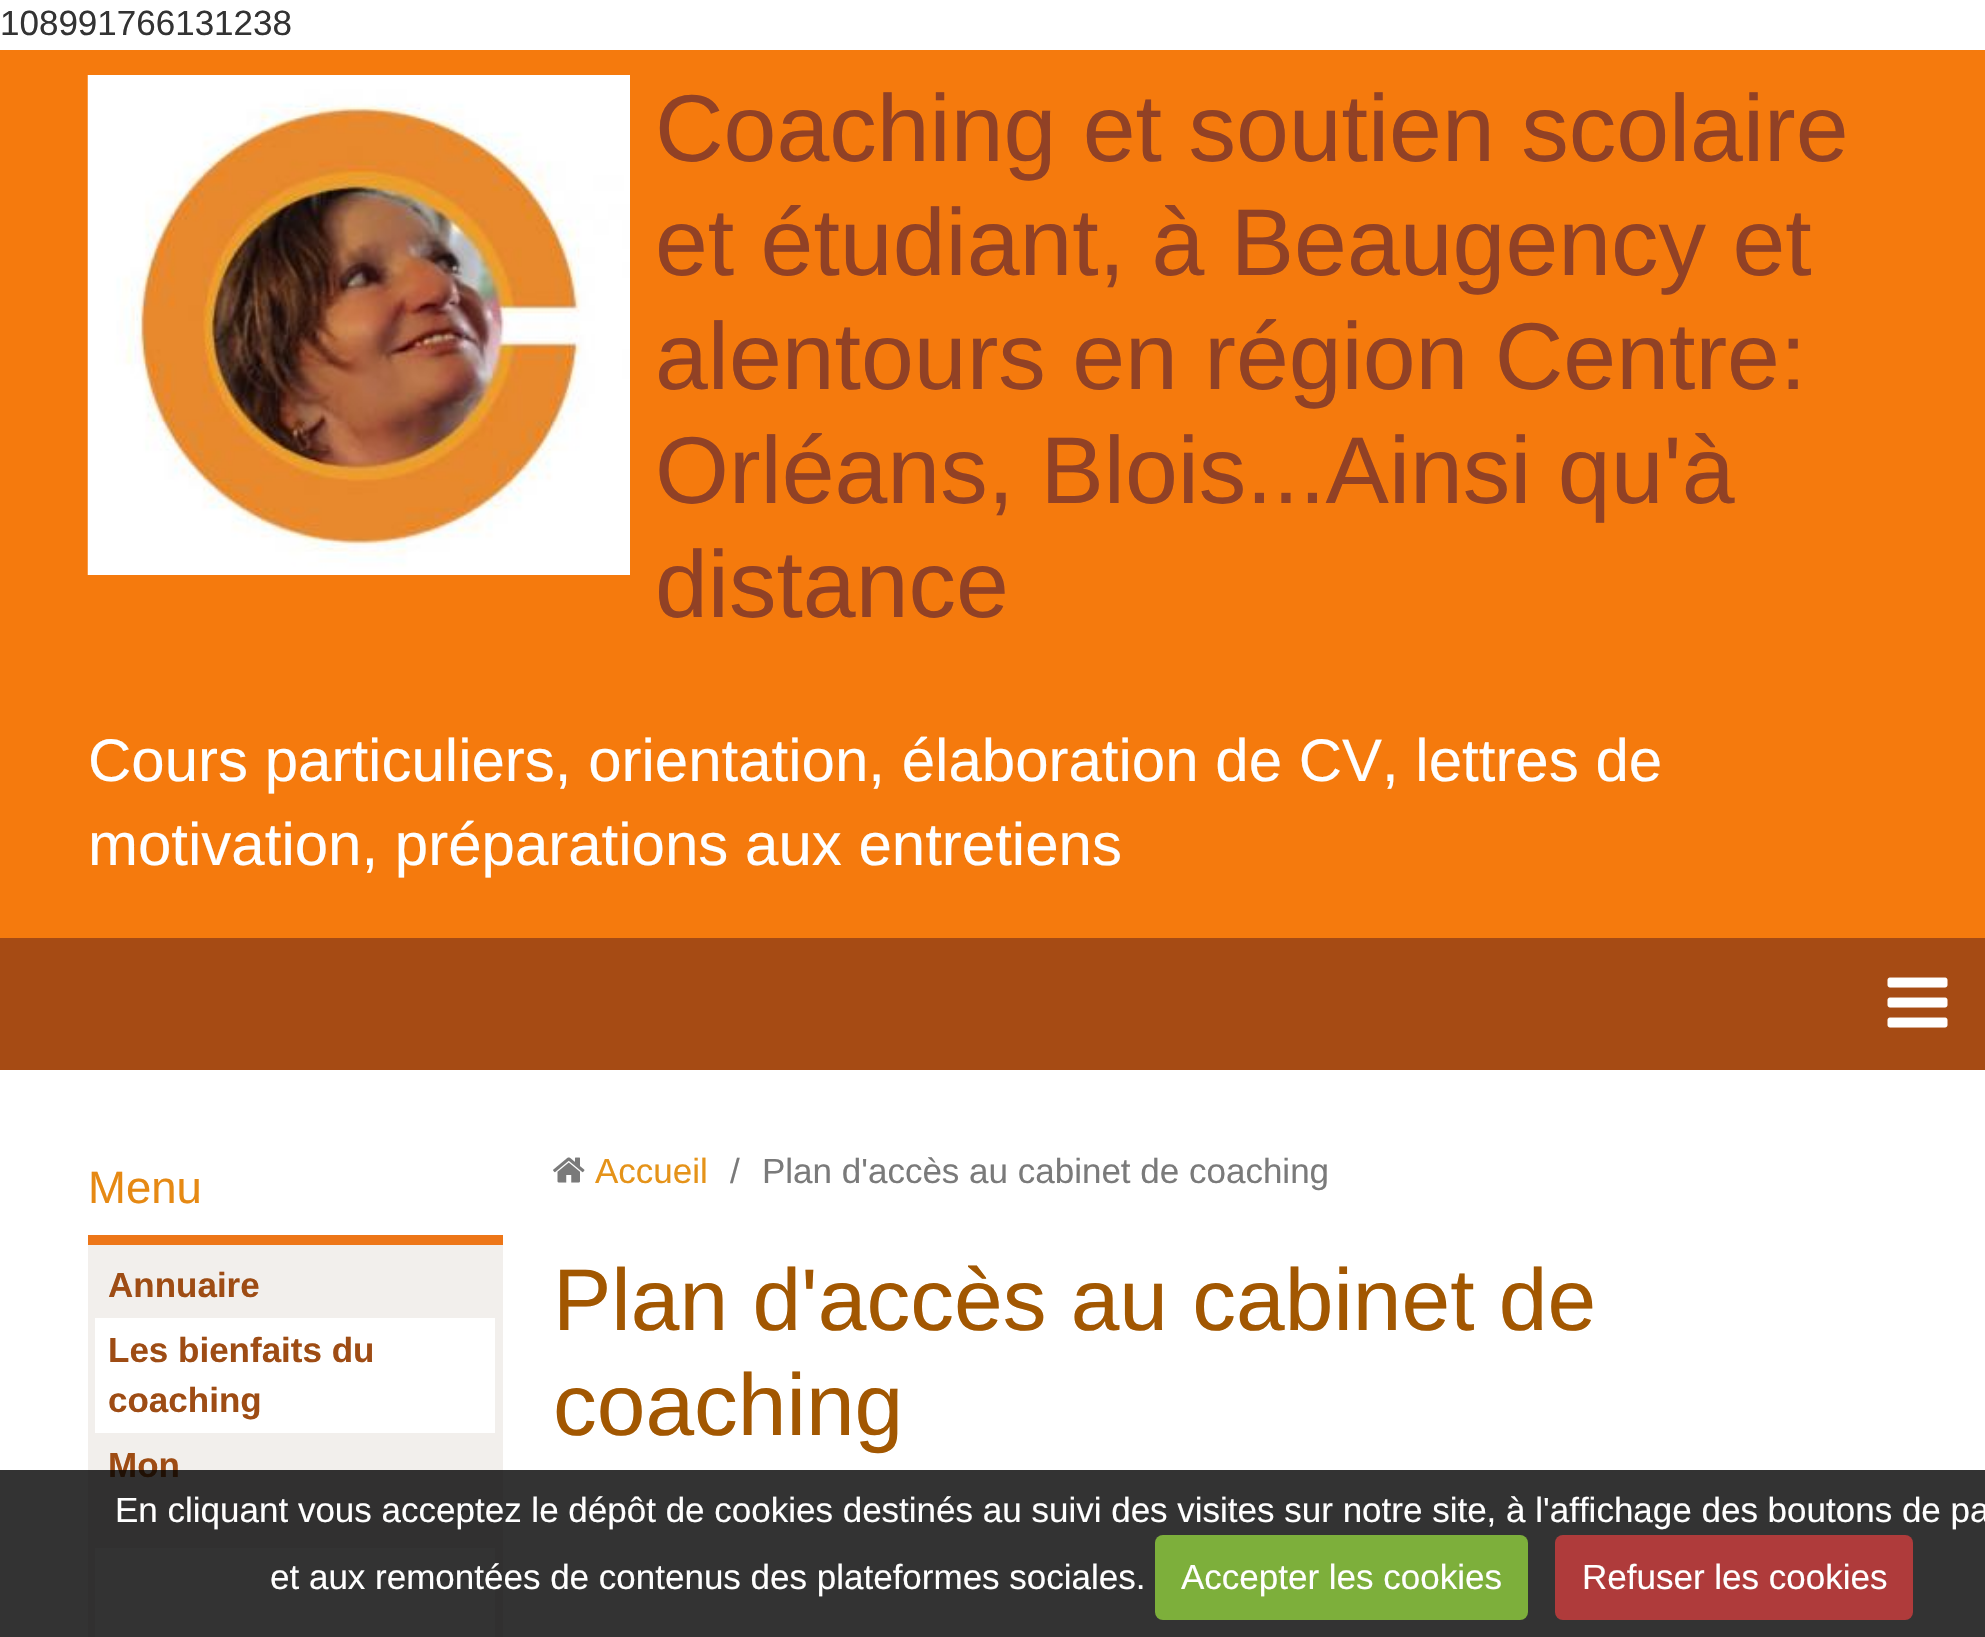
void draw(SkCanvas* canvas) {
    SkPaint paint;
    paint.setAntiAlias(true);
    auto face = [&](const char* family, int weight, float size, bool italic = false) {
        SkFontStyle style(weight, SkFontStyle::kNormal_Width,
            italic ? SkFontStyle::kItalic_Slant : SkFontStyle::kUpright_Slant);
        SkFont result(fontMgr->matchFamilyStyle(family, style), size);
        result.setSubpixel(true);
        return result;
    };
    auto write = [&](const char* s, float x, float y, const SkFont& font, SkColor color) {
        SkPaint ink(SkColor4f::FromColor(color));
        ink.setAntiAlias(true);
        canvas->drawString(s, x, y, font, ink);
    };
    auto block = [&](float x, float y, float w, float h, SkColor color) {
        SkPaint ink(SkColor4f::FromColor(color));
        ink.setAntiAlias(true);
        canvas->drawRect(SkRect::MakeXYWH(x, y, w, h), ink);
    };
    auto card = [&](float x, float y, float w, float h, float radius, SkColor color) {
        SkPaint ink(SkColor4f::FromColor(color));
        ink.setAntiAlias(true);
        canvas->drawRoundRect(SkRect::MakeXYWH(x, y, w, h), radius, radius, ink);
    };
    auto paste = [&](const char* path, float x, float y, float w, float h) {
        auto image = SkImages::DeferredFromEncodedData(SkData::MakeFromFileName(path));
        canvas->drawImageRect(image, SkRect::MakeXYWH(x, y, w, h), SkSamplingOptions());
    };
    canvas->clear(SK_ColorWHITE);
    auto kFont1 = face("Liberation Sans", 400, 35);
    write("108991766131238", 0, 35, kFont1, SkColorSetRGB(51, 51, 51));
    block(0, 50, 1985, 888, SkColorSetRGB(245, 122, 13));
    paste("pic1.png", 87, 75, 543, 500);
    auto kFont2 = face("Liberation Sans", 400, 95);
    write("Coaching et soutien scolaire", 655, 161, kFont2, SkColorSetRGB(145, 65, 37));
    write("et étudiant, à Beaugency et", 655, 275, kFont2, SkColorSetRGB(145, 65, 37));
    write("alentours en région Centre:", 655, 389, kFont2, SkColorSetRGB(145, 65, 37));
    write("Orléans, Blois...Ainsi qu'à", 655, 503, kFont2, SkColorSetRGB(145, 65, 37));
    write("distance", 655, 617, kFont2, SkColorSetRGB(145, 65, 37));
    auto kFont3 = face("Liberation Sans", 400, 60);
    write("Cours particuliers, orientation, élaboration de CV, lettres de", 88, 781, kFont3, SK_ColorWHITE);
    write("motivation, préparations aux entretiens", 88, 865, kFont3, SK_ColorWHITE);
    block(0, 938, 1985, 132, SkColorSetRGB(166, 75, 20));
    paste("pic2.png", 1887, 977, 61, 51);
    block(88, 1235, 415, 10, SkColorSetRGB(237, 118, 24));
    auto kFont4 = face("Liberation Sans", 400, 45.5f);
    write("Menu", 88, 1203, kFont4, SkColorSetRGB(230, 137, 19));
    block(88, 1245, 415, 392, SkColorSetRGB(242, 239, 236));
    auto kFont5 = face("Liberation Sans", 700, 35);
    write("Annuaire", 108, 1297, kFont5, SkColorSetRGB(158, 76, 20));
    block(95, 1318, 400, 115, SK_ColorWHITE);
    write("Les bienfaits du", 108, 1362, kFont5, SkColorSetRGB(158, 76, 20));
    write("coaching", 108, 1412, kFont5, SkColorSetRGB(158, 76, 20));
    write("Mon", 108, 1477, kFont5, SkColorSetRGB(158, 76, 20));
    block(95, 1548, 400, 89, SK_ColorWHITE);
    paste("pic3.png", 553, 1157, 32, 26);
    write("Accueil", 595, 1183, kFont1, SkColorSetRGB(229, 147, 25));
    write("/", 730, 1183, kFont1, SkColorSetRGB(122, 122, 122));
    write("Plan d'accès au cabinet de coaching", 762, 1183, kFont1, SkColorSetRGB(122, 122, 122));
    auto kFont6 = face("Liberation Sans", 400, 87.5f);
    write("Plan d'accès au cabinet de", 553, 1330, kFont6, SkColorSetRGB(162, 87, 1));
    write("coaching", 553, 1435, kFont6, SkColorSetRGB(162, 87, 1));
    block(0, 1470, 1985, 167, SkColorSetARGB(204, 0, 0, 0));
    write("En cliquant vous acceptez le dépôt de cookies destinés au suivi des visites sur notre site, à l'affichage des boutons de pa", 115, 1522, kFont1, SK_ColorWHITE);
    write("et aux remontées de contenus des plateformes sociales.", 270, 1589, kFont1, SK_ColorWHITE);
    card(1155, 1535, 373, 85, 8, SkColorSetRGB(125, 175, 59));
    write("Accepter les cookies", 1181, 1589, kFont1, SK_ColorWHITE);
    card(1555, 1535, 358, 85, 8, SkColorSetRGB(175, 59, 59));
    write("Refuser les cookies", 1582, 1589, kFont1, SK_ColorWHITE);
}
